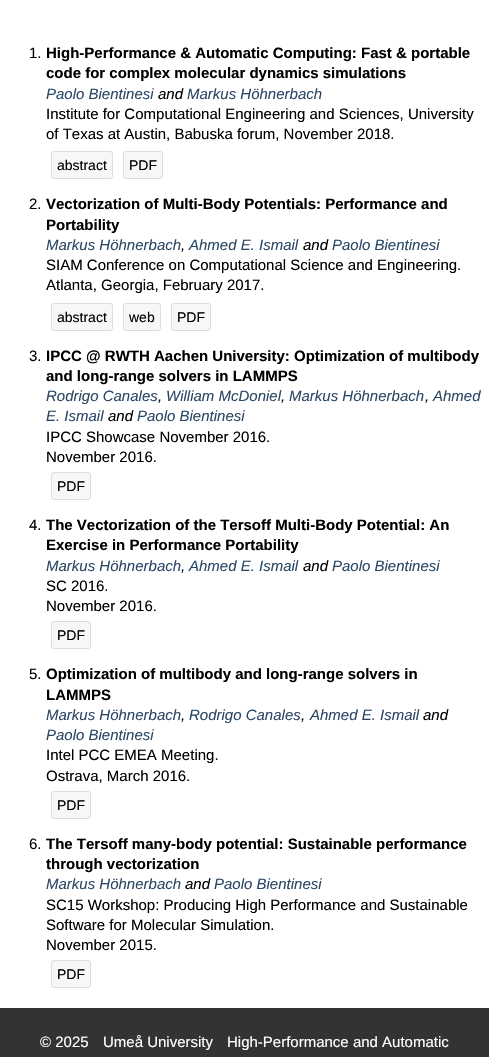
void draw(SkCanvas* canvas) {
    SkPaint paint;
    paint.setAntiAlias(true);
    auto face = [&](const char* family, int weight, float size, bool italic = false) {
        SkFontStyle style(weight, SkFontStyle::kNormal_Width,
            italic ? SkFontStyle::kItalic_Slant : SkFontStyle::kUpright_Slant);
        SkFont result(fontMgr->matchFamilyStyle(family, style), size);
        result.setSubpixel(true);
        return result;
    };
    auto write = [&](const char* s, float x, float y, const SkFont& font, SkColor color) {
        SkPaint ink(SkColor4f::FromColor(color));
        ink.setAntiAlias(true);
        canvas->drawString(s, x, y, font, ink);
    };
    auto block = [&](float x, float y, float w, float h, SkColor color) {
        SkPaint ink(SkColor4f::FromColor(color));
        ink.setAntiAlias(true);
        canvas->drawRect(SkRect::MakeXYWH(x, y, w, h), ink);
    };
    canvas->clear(SK_ColorWHITE);
    auto kFont1 = face("Liberation Sans", 400, 15);
    write("1.", 29, 58, kFont1, SK_ColorBLACK);
    auto kFont2 = face("Liberation Sans", 700, 15);
    write("High-Performance & Automatic Computing: Fast & portable", 46, 58, kFont2, SK_ColorBLACK);
    write("code for complex molecular dynamics simulations", 46, 78, kFont2, SK_ColorBLACK);
    auto kFont3 = face("Liberation Sans", 400, 15, true);
    write("Paolo Bientinesi", 46, 99, kFont3, SkColorSetRGB(42, 71, 101));
    write("and", 158, 99, kFont3, SK_ColorBLACK);
    write("Markus Höhnerbach", 187, 99, kFont3, SkColorSetRGB(42, 71, 101));
    write("Institute for Computational Engineering and Sciences, University", 46, 119, kFont1, SK_ColorBLACK);
    write("of Texas at Austin, Babuska forum, November 2018.", 46, 139, kFont1, SK_ColorBLACK);
    paint.setColor(SkColorSetRGB(247, 247, 247));
    canvas->drawRoundRect(SkRect::MakeXYWH(51.5f, 151.5f, 61, 27), 2.5f, 2.5f, paint);
    paint.setStyle(SkPaint::kStroke_Style);
    paint.setStrokeWidth(1);
    paint.setColor(SkColorSetRGB(221, 221, 221));
    canvas->drawRoundRect(SkRect::MakeXYWH(51.5f, 151.5f, 61, 27), 2.5f, 2.5f, paint);
    auto kFont4 = face("Liberation Sans", 400, 14);
    write("abstract", 57, 170, kFont4, SK_ColorBLACK);
    paint.setStyle(SkPaint::kFill_Style);
    paint.setColor(SkColorSetRGB(247, 247, 247));
    canvas->drawRoundRect(SkRect::MakeXYWH(123.5f, 151.5f, 39, 27), 2.5f, 2.5f, paint);
    paint.setStyle(SkPaint::kStroke_Style);
    paint.setColor(SkColorSetRGB(221, 221, 221));
    canvas->drawRoundRect(SkRect::MakeXYWH(123.5f, 151.5f, 39, 27), 2.5f, 2.5f, paint);
    write("PDF", 129, 170, kFont4, SK_ColorBLACK);
    write("2.", 29, 209, kFont1, SK_ColorBLACK);
    write("Vectorization of Multi-Body Potentials: Performance and", 46, 209, kFont2, SK_ColorBLACK);
    write("Portability", 46, 230, kFont2, SK_ColorBLACK);
    write("Markus Höhnerbach", 46, 250, kFont3, SkColorSetRGB(42, 71, 101));
    write(",", 181, 250, kFont3, SK_ColorBLACK);
    write("Ahmed E. Ismail", 189, 250, kFont3, SkColorSetRGB(42, 71, 101));
    write("and", 303, 250, kFont3, SK_ColorBLACK);
    write("Paolo Bientinesi", 332, 250, kFont3, SkColorSetRGB(42, 71, 101));
    write("SIAM Conference on Computational Science and Engineering.", 46, 270, kFont1, SK_ColorBLACK);
    write("Atlanta, Georgia, February 2017.", 46, 290, kFont1, SK_ColorBLACK);
    paint.setStyle(SkPaint::kFill_Style);
    paint.setColor(SkColorSetRGB(247, 247, 247));
    canvas->drawRoundRect(SkRect::MakeXYWH(51.5f, 303.5f, 61, 27), 2.5f, 2.5f, paint);
    paint.setStyle(SkPaint::kStroke_Style);
    paint.setColor(SkColorSetRGB(221, 221, 221));
    canvas->drawRoundRect(SkRect::MakeXYWH(51.5f, 303.5f, 61, 27), 2.5f, 2.5f, paint);
    write("abstract", 57, 322, kFont4, SK_ColorBLACK);
    paint.setStyle(SkPaint::kFill_Style);
    paint.setColor(SkColorSetRGB(247, 247, 247));
    canvas->drawRoundRect(SkRect::MakeXYWH(123.5f, 303.5f, 37, 27), 2.5f, 2.5f, paint);
    paint.setStyle(SkPaint::kStroke_Style);
    paint.setColor(SkColorSetRGB(221, 221, 221));
    canvas->drawRoundRect(SkRect::MakeXYWH(123.5f, 303.5f, 37, 27), 2.5f, 2.5f, paint);
    write("web", 129, 322, kFont4, SK_ColorBLACK);
    paint.setStyle(SkPaint::kFill_Style);
    paint.setColor(SkColorSetRGB(247, 247, 247));
    canvas->drawRoundRect(SkRect::MakeXYWH(171.5f, 303.5f, 39, 27), 2.5f, 2.5f, paint);
    paint.setStyle(SkPaint::kStroke_Style);
    paint.setColor(SkColorSetRGB(221, 221, 221));
    canvas->drawRoundRect(SkRect::MakeXYWH(171.5f, 303.5f, 39, 27), 2.5f, 2.5f, paint);
    write("PDF", 177, 322, kFont4, SK_ColorBLACK);
    write("3.", 29, 361, kFont1, SK_ColorBLACK);
    write("IPCC @ RWTH Aachen University: Optimization of multibody", 46, 361, kFont2, SK_ColorBLACK);
    write("and long-range solvers in LAMMPS", 46, 381, kFont2, SK_ColorBLACK);
    write("Rodrigo Canales", 46, 401, kFont3, SkColorSetRGB(42, 71, 101));
    write(",", 158, 401, kFont3, SK_ColorBLACK);
    write("William McDoniel", 166, 401, kFont3, SkColorSetRGB(42, 71, 101));
    write(",", 281, 401, kFont3, SK_ColorBLACK);
    write("Markus Höhnerbach", 289, 401, kFont3, SkColorSetRGB(42, 71, 101));
    write(",", 425, 401, kFont3, SK_ColorBLACK);
    write("Ahmed", 433, 401, kFont3, SkColorSetRGB(42, 71, 101));
    write("E. Ismail", 46, 421, kFont3, SkColorSetRGB(42, 71, 101));
    write("and", 108, 421, kFont3, SK_ColorBLACK);
    write("Paolo Bientinesi", 137, 421, kFont3, SkColorSetRGB(42, 71, 101));
    write("IPCC Showcase November 2016.", 46, 442, kFont1, SK_ColorBLACK);
    write("November 2016.", 46, 462, kFont1, SK_ColorBLACK);
    paint.setStyle(SkPaint::kFill_Style);
    paint.setColor(SkColorSetRGB(247, 247, 247));
    canvas->drawRoundRect(SkRect::MakeXYWH(51.5f, 472.5f, 39, 27), 2.5f, 2.5f, paint);
    paint.setStyle(SkPaint::kStroke_Style);
    paint.setColor(SkColorSetRGB(221, 221, 221));
    canvas->drawRoundRect(SkRect::MakeXYWH(51.5f, 472.5f, 39, 27), 2.5f, 2.5f, paint);
    write("PDF", 57, 491, kFont4, SK_ColorBLACK);
    write("4.", 29, 530, kFont1, SK_ColorBLACK);
    write("The Vectorization of the Tersoff Multi-Body Potential: An", 46, 530, kFont2, SK_ColorBLACK);
    write("Exercise in Performance Portability", 46, 550, kFont2, SK_ColorBLACK);
    write("Markus Höhnerbach", 46, 571, kFont3, SkColorSetRGB(42, 71, 101));
    write(",", 181, 571, kFont3, SK_ColorBLACK);
    write("Ahmed E. Ismail", 189, 571, kFont3, SkColorSetRGB(42, 71, 101));
    write("and", 303, 571, kFont3, SK_ColorBLACK);
    write("Paolo Bientinesi", 332, 571, kFont3, SkColorSetRGB(42, 71, 101));
    write("SC 2016.", 46, 591, kFont1, SK_ColorBLACK);
    write("November 2016.", 46, 611, kFont1, SK_ColorBLACK);
    paint.setStyle(SkPaint::kFill_Style);
    paint.setColor(SkColorSetRGB(247, 247, 247));
    canvas->drawRoundRect(SkRect::MakeXYWH(51.5f, 621.5f, 39, 27), 2.5f, 2.5f, paint);
    paint.setStyle(SkPaint::kStroke_Style);
    paint.setColor(SkColorSetRGB(221, 221, 221));
    canvas->drawRoundRect(SkRect::MakeXYWH(51.5f, 621.5f, 39, 27), 2.5f, 2.5f, paint);
    write("PDF", 57, 640, kFont4, SK_ColorBLACK);
    write("5.", 29, 679, kFont1, SK_ColorBLACK);
    write("Optimization of multibody and long-range solvers in", 46, 679, kFont2, SK_ColorBLACK);
    write("LAMMPS", 46, 700, kFont2, SK_ColorBLACK);
    write("Markus Höhnerbach", 46, 720, kFont3, SkColorSetRGB(42, 71, 101));
    write(",", 181, 720, kFont3, SK_ColorBLACK);
    write("Rodrigo Canales", 189, 720, kFont3, SkColorSetRGB(42, 71, 101));
    write(",", 301, 720, kFont3, SK_ColorBLACK);
    write("Ahmed E. Ismail", 310, 720, kFont3, SkColorSetRGB(42, 71, 101));
    write("and", 423, 720, kFont3, SK_ColorBLACK);
    write("Paolo Bientinesi", 46, 740, kFont3, SkColorSetRGB(42, 71, 101));
    write("Intel PCC EMEA Meeting.", 46, 760, kFont1, SK_ColorBLACK);
    write("Ostrava, March 2016.", 46, 781, kFont1, SK_ColorBLACK);
    paint.setStyle(SkPaint::kFill_Style);
    paint.setColor(SkColorSetRGB(247, 247, 247));
    canvas->drawRoundRect(SkRect::MakeXYWH(51.5f, 791.5f, 39, 27), 2.5f, 2.5f, paint);
    paint.setStyle(SkPaint::kStroke_Style);
    paint.setColor(SkColorSetRGB(221, 221, 221));
    canvas->drawRoundRect(SkRect::MakeXYWH(51.5f, 791.5f, 39, 27), 2.5f, 2.5f, paint);
    write("PDF", 57, 810, kFont4, SK_ColorBLACK);
    write("6.", 29, 849, kFont1, SK_ColorBLACK);
    write("The Tersoff many-body potential: Sustainable performance", 46, 849, kFont2, SK_ColorBLACK);
    write("through vectorization", 46, 869, kFont2, SK_ColorBLACK);
    write("Markus Höhnerbach", 46, 889, kFont3, SkColorSetRGB(42, 71, 101));
    write("and", 185, 889, kFont3, SK_ColorBLACK);
    write("Paolo Bientinesi", 214, 889, kFont3, SkColorSetRGB(42, 71, 101));
    write("SC15 Workshop: Producing High Performance and Sustainable", 46, 910, kFont1, SK_ColorBLACK);
    write("Software for Molecular Simulation.", 46, 930, kFont1, SK_ColorBLACK);
    write("November 2015.", 46, 950, kFont1, SK_ColorBLACK);
    paint.setStyle(SkPaint::kFill_Style);
    paint.setColor(SkColorSetRGB(247, 247, 247));
    canvas->drawRoundRect(SkRect::MakeXYWH(51.5f, 960.5f, 39, 27), 2.5f, 2.5f, paint);
    paint.setStyle(SkPaint::kStroke_Style);
    paint.setColor(SkColorSetRGB(221, 221, 221));
    canvas->drawRoundRect(SkRect::MakeXYWH(51.5f, 960.5f, 39, 27), 2.5f, 2.5f, paint);
    write("PDF", 57, 979, kFont4, SK_ColorBLACK);
    block(0, 1008, 489, 49, SkColorSetRGB(51, 51, 51));
    write("© 2025", 40, 1047, kFont1, SK_ColorWHITE);
    write("Umeå University", 103, 1047, kFont1, SK_ColorWHITE);
    write("High-Performance and Automatic", 227, 1047, kFont1, SK_ColorWHITE);
}
